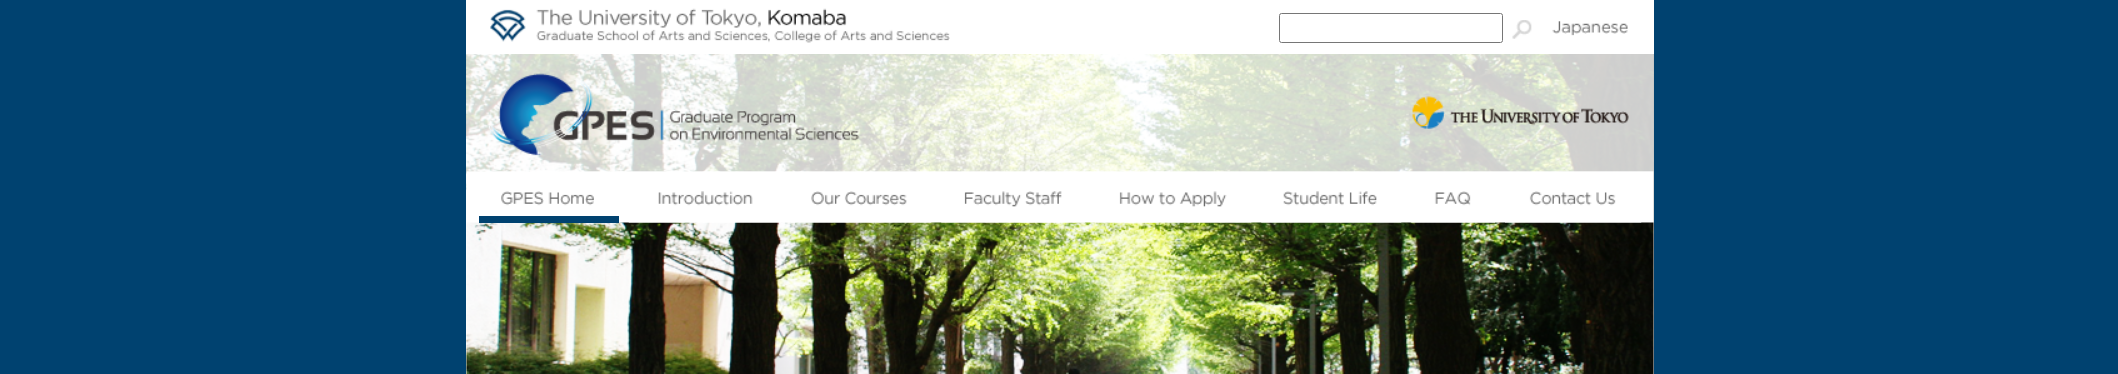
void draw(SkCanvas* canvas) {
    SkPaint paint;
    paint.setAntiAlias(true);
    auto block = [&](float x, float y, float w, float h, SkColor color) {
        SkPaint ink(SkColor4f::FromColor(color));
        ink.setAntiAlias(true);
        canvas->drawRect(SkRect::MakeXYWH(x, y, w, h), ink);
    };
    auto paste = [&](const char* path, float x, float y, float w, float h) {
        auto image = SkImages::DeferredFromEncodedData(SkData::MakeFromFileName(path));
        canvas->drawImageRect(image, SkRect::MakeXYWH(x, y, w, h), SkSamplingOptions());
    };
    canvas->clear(SkColorSetRGB(0, 66, 112));
    block(466, 54, 1188, 320, SK_ColorWHITE);
    block(466, 0, 798, 54, SK_ColorWHITE);
    paste("pic1.png", 490, 8, 460, 35);
    paste("pic15.png", 466, 54, 1188, 320);
    paste("pic4.png", 466, 53, 1188, 170);
    block(1264, 0, 390, 54, SK_ColorWHITE);
    paint.setStyle(SkPaint::kStroke_Style);
    paint.setStrokeWidth(1);
    paint.setColor(SkColorSetRGB(118, 118, 118));
    canvas->drawRoundRect(SkRect::MakeXYWH(1279.5f, 13.5f, 223, 29), 2, 2, paint);
    paste("pic2.png", 1512, 20, 20, 19);
    paste("pic3.png", 1552, 21, 76, 15);
    paste("pic5.png", 487, 73, 372, 83);
    paste("pic6.png", 1412, 96, 217, 33);
    paste("pic7.png", 479, 191, 140, 25);
    block(479, 216, 140, 7, SkColorSetRGB(0, 66, 112));
    paste("pic8.png", 628, 191, 151, 32);
    paste("pic9.png", 791, 191, 141, 32);
    paste("pic10.png", 941, 191, 144, 32);
    paste("pic11.png", 1095, 191, 157, 32);
    paste("pic12.png", 1261, 191, 141, 32);
    paste("pic13.png", 1411, 191, 84, 32);
    paste("pic14.png", 1505, 191, 137, 32);
}
